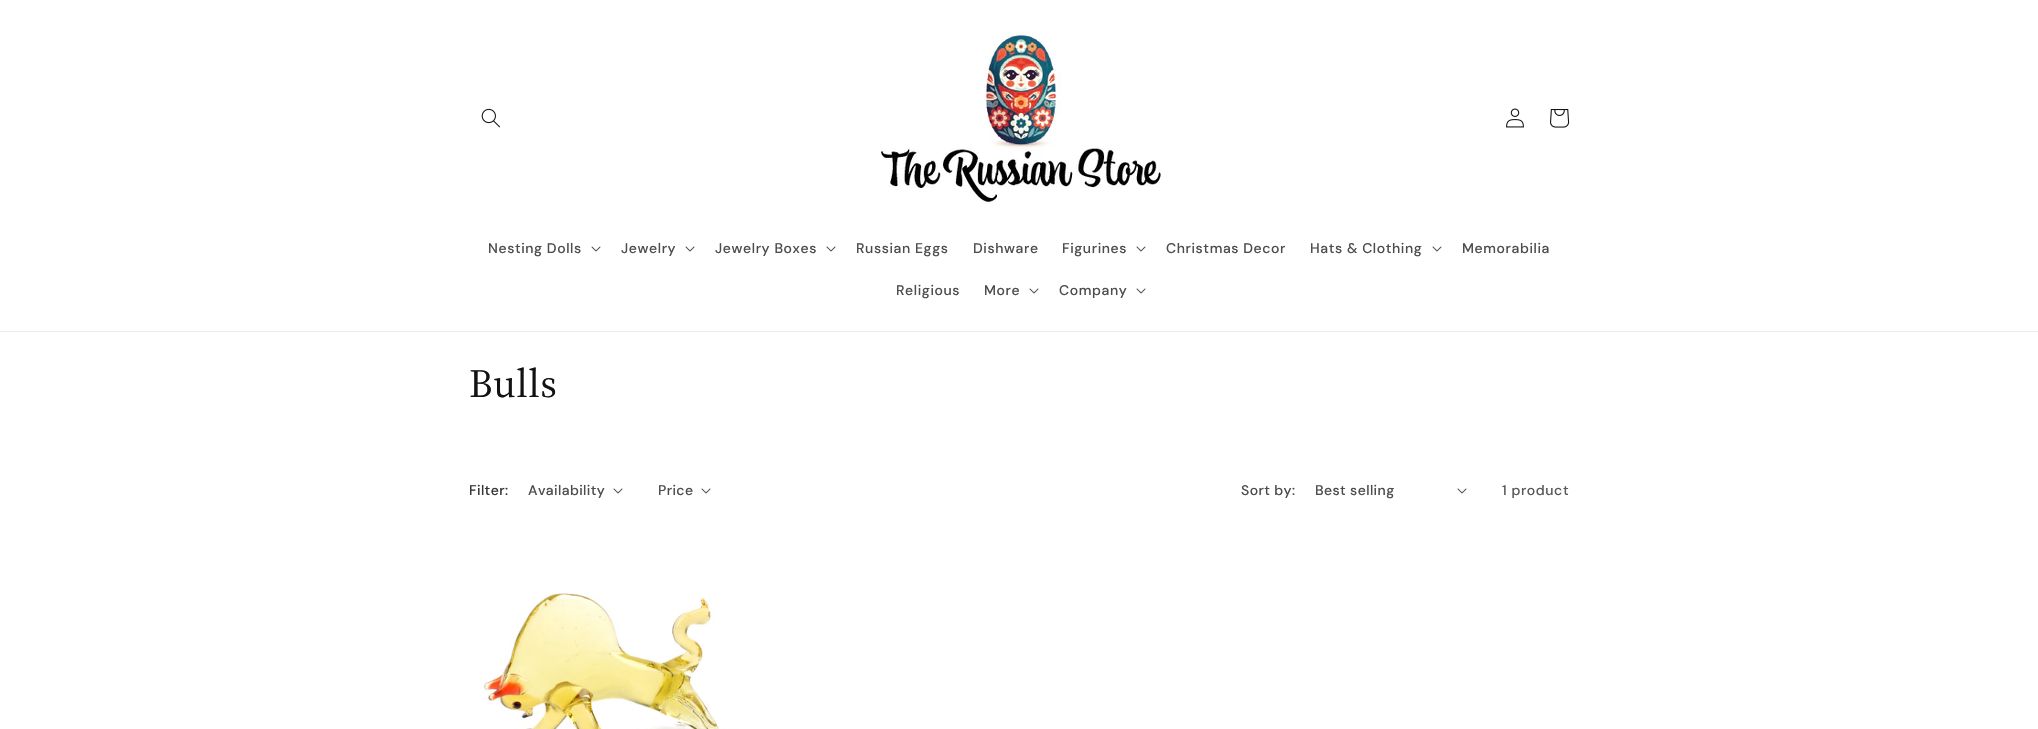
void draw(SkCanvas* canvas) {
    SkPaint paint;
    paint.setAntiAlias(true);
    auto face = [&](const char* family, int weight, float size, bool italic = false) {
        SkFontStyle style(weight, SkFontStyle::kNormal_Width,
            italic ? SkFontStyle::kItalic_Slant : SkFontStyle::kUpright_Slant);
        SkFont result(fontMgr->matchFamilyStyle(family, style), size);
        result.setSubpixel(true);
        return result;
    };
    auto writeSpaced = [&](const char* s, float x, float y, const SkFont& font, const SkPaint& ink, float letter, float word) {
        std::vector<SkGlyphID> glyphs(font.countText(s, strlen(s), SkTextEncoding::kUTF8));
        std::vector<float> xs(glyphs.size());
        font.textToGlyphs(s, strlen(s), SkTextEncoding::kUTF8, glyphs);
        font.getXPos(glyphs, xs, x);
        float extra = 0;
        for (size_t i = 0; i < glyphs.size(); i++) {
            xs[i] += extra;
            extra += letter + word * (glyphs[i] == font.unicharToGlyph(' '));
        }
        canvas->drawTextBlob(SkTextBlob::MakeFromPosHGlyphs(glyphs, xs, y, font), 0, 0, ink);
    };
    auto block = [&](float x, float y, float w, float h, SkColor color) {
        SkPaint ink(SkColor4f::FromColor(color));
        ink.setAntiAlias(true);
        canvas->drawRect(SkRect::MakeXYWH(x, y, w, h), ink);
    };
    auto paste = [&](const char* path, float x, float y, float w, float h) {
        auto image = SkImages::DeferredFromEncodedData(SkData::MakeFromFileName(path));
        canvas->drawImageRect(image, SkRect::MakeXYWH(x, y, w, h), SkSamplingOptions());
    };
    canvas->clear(SK_ColorWHITE);
    block(0, 331, 2038, 1, SkColorSetRGB(236, 236, 236));
    paste("pic1.png", 481, 108, 19, 20);
    paste("pic2.png", 881, 32, 280, 172);
    paste("pic3.png", 1506, 108, 18, 20);
    paste("pic4.png", 1550, 109, 20, 19);
    auto kFont1 = face("DM Sans", 500, 14);
    paint.setColor(SkColorSetRGB(77, 77, 77));
    writeSpaced("Nesting Dolls", 488, 253, kFont1, paint, 0.6f, 0);
    paste("pic5.png", 591, 246, 10, 6);
    writeSpaced("Jewelry", 621, 253, kFont1, paint, 0.6f, 0);
    paste("pic5.png", 685, 246, 10, 6);
    writeSpaced("Jewelry Boxes", 715, 253, kFont1, paint, 0.6f, 0);
    paste("pic5.png", 826, 246, 10, 6);
    writeSpaced("Russian Eggs", 856, 253, kFont1, paint, 0.6f, 0);
    writeSpaced("Dishware", 973, 253, kFont1, paint, 0.6f, 0);
    writeSpaced("Figurines", 1062, 253, kFont1, paint, 0.6f, 0);
    paste("pic5.png", 1136, 246, 10, 6);
    writeSpaced("Christmas Decor", 1166, 253, kFont1, paint, 0.6f, 0);
    writeSpaced("Hats & Clothing", 1310, 253, kFont1, paint, 0.6f, 0);
    paste("pic5.png", 1432, 246, 10, 6);
    writeSpaced("Memorabilia", 1462, 253, kFont1, paint, 0.6f, 0);
    writeSpaced("Religious", 896, 295, kFont1, paint, 0.6f, 0);
    writeSpaced("More", 984, 295, kFont1, paint, 0.6f, 0);
    paste("pic5.png", 1029, 288, 10, 6);
    writeSpaced("Company", 1059, 295, kFont1, paint, 0.6f, 0);
    paste("pic5.png", 1136, 288, 10, 6);
    auto kFont2 = face("Source Serif 4", 400, 40);
    paint.setColor(SkColorSetRGB(18, 18, 18));
    writeSpaced("Bulls", 469, 397, kFont2, paint, 0.6f, 0);
    paint.setColor(SkColorSetRGB(54, 54, 54));
    writeSpaced("Filter:", 469, 495, kFont1, paint, 0.4f, 0);
    paint.setColor(SkColorSetRGB(77, 77, 77));
    writeSpaced("Availability", 528, 495, kFont1, paint, 0.4f, 0);
    paste("pic5.png", 613, 488, 10, 6);
    writeSpaced("Price", 658, 495, kFont1, paint, 0.4f, 0);
    paste("pic5.png", 701, 488, 10, 6);
    writeSpaced("Sort by:", 1241, 495, kFont1, paint, 0.4f, 0);
    writeSpaced("Best selling", 1315, 495, kFont1, paint, 0.4f, 0);
    paste("pic5.png", 1457, 488, 10, 6);
    paint.setColor(SkColorSetRGB(89, 89, 89));
    writeSpaced("1 product", 1502, 495, kFont1, paint, 0.6f, 0);
    paste("pic6.png", 469, 537, 269, 192);
}
